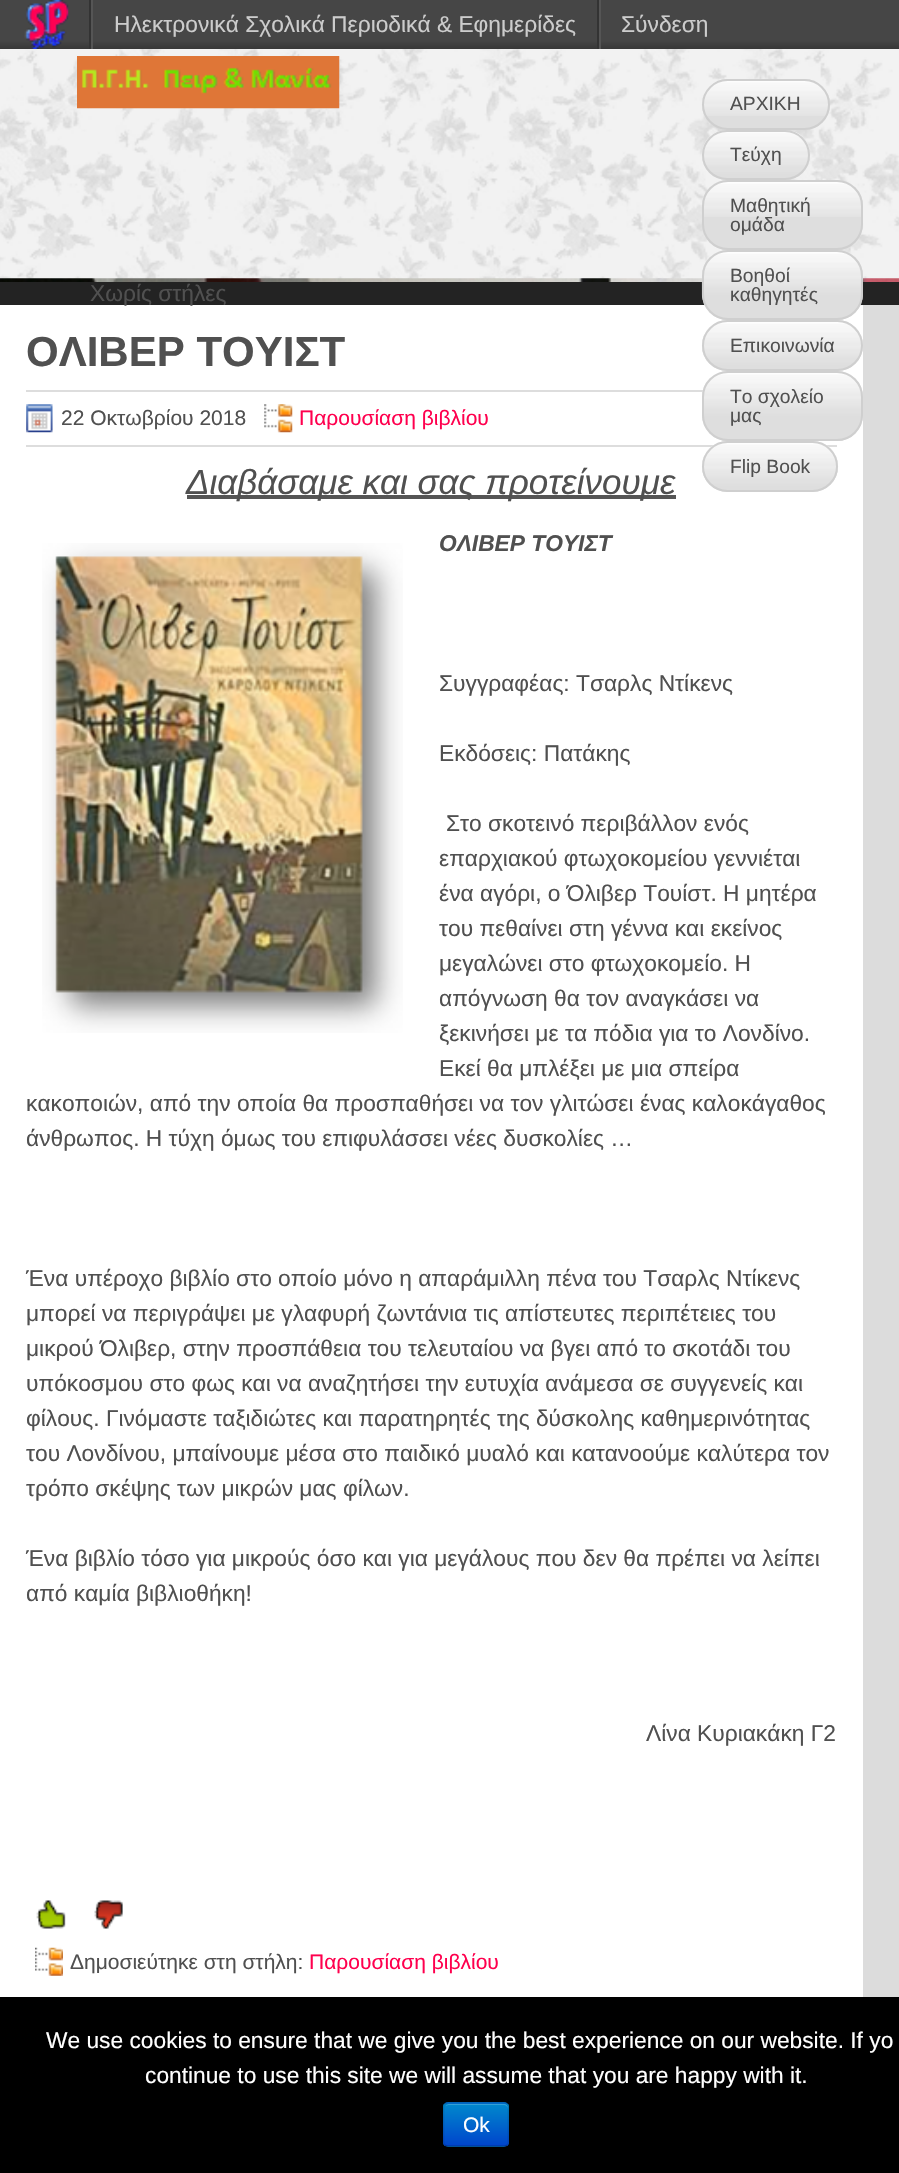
void draw(SkCanvas* canvas) {
    SkPaint paint;
    paint.setAntiAlias(true);
    auto face = [&](const char* family, int weight, float size, bool italic = false) {
        SkFontStyle style(weight, SkFontStyle::kNormal_Width,
            italic ? SkFontStyle::kItalic_Slant : SkFontStyle::kUpright_Slant);
        SkFont result(fontMgr->matchFamilyStyle(family, style), size);
        result.setSubpixel(true);
        return result;
    };
    auto write = [&](const char* s, float x, float y, const SkFont& font, SkColor color) {
        SkPaint ink(SkColor4f::FromColor(color));
        ink.setAntiAlias(true);
        canvas->drawString(s, x, y, font, ink);
    };
    auto block = [&](float x, float y, float w, float h, SkColor color) {
        SkPaint ink(SkColor4f::FromColor(color));
        ink.setAntiAlias(true);
        canvas->drawRect(SkRect::MakeXYWH(x, y, w, h), ink);
    };
    auto card = [&](float x, float y, float w, float h, float radius, SkColor color) {
        SkPaint ink(SkColor4f::FromColor(color));
        ink.setAntiAlias(true);
        canvas->drawRoundRect(SkRect::MakeXYWH(x, y, w, h), radius, radius, ink);
    };
    auto paste = [&](const char* path, float x, float y, float w, float h) {
        auto image = SkImages::DeferredFromEncodedData(SkData::MakeFromFileName(path));
        canvas->drawImageRect(image, SkRect::MakeXYWH(x, y, w, h), SkSamplingOptions());
    };
    canvas->clear(SK_ColorWHITE);
    paste("pic1.png", 0, 278, 899, 4);
    {
        const SkColor colors[] = {SkColorSetRGB(55, 55, 55), SkColorSetRGB(70, 70, 70)};
        const float stops[] = {0, 0.18f};
        const SkPoint ends[] = {{525, 49}, {525, 0}};
        paint.setShader(SkGradientShader::MakeLinear(ends, colors, stops, 2, SkTileMode::kClamp));
        paint.setAlpha(255);
    }
    canvas->drawRect(SkRect::MakeXYWH(0, 0, 899, 49), paint);
    block(91, 0, 2, 49, SkColorSetRGB(85, 85, 85));
    block(89, 0, 2, 49, SkColorSetRGB(51, 51, 51));
    paste("pic2.png", 24, 0, 45, 49);
    block(599, 0, 2, 49, SkColorSetRGB(85, 85, 85));
    block(597, 0, 2, 49, SkColorSetRGB(51, 51, 51));
    auto kFont1 = face("Liberation Sans", 400, 22.75f);
    write("Ηλεκτρονικά Σχολικά Περιοδικά & Εφημερίδες", 114, 32, kFont1, SkColorSetRGB(204, 204, 204));
    write("Σύνδεση", 621, 32, kFont1, SkColorSetRGB(204, 204, 204));
    block(0, 282, 899, 23, SkColorSetRGB(35, 35, 35));
    write("Χωρίς στήλες", 90, 301, kFont1, SkColorSetRGB(80, 80, 80));
    paste("pic3.png", 0, 49, 899, 230);
    paste("pic4.png", 77, 56, 263, 53);
    card(702, 79, 128, 51, 25.5f, SkColorSetRGB(222, 222, 222));
    paste("pic5.png", 702, 80, 127, 36);
    paint.setStyle(SkPaint::kStroke_Style);
    paint.setStrokeWidth(2);
    paint.setShader(nullptr);
    paint.setColor(SkColorSetRGB(207, 207, 207));
    canvas->drawRoundRect(SkRect::MakeXYWH(703, 80, 126, 49), 24.5f, 24.5f, paint);
    auto kFont2 = face("Liberation Sans", 400, 19.25f);
    write("ΑΡΧΙΚΗ", 730, 110, kFont2, SkColorSetRGB(80, 80, 80));
    card(702, 130, 108, 50, 25, SkColorSetRGB(222, 222, 222));
    paste("pic6.png", 702, 131, 108, 46);
    canvas->drawRoundRect(SkRect::MakeXYWH(703, 131, 106, 48), 24, 24, paint);
    write("Τεύχη", 730, 161, kFont2, SkColorSetRGB(80, 80, 80));
    card(702, 180, 161, 70, 26, SkColorSetRGB(222, 222, 222));
    paste("pic7.png", 702, 182, 161, 35);
    canvas->drawRoundRect(SkRect::MakeXYWH(703, 181, 159, 68), 25, 25, paint);
    write("Μαθητική", 730, 212, kFont2, SkColorSetRGB(80, 80, 80));
    write("ομάδα", 730, 231, kFont2, SkColorSetRGB(80, 80, 80));
    card(702, 250, 161, 70, 26, SkColorSetRGB(222, 222, 222));
    paste("pic8.png", 701, 252, 162, 46);
    canvas->drawRoundRect(SkRect::MakeXYWH(703, 251, 159, 68), 25, 25, paint);
    write("Βοηθοί", 730, 282, kFont2, SkColorSetRGB(80, 80, 80));
    write("καθηγητές", 730, 301, kFont2, SkColorSetRGB(80, 80, 80));
    card(702, 320, 161, 51, 25.5f, SkColorSetRGB(222, 222, 222));
    paste("pic9.png", 702, 322, 161, 46);
    canvas->drawRoundRect(SkRect::MakeXYWH(703, 321, 159, 49), 24.5f, 24.5f, paint);
    write("Επικοινωνία", 730, 352, kFont2, SkColorSetRGB(80, 80, 80));
    block(26, 390, 677, 2, SkColorSetRGB(221, 221, 221));
    card(702, 371, 161, 70, 26, SkColorSetRGB(222, 222, 222));
    paste("pic10.png", 702, 372, 161, 46);
    canvas->drawRoundRect(SkRect::MakeXYWH(703, 372, 159, 68), 25, 25, paint);
    write("Το σχολείο", 730, 403, kFont2, SkColorSetRGB(80, 80, 80));
    write("μας", 730, 422, kFont2, SkColorSetRGB(80, 80, 80));
    block(26, 445, 811, 2, SkColorSetRGB(221, 221, 221));
    card(702, 441, 136, 51, 25.5f, SkColorSetRGB(222, 222, 222));
    paste("pic11.png", 702, 442, 136, 46);
    canvas->drawRoundRect(SkRect::MakeXYWH(703, 442, 134, 49), 24.5f, 24.5f, paint);
    write("Flip Book", 730, 473, kFont2, SkColorSetRGB(80, 80, 80));
    block(863, 305, 36, 1692, SkColorSetRGB(220, 220, 220));
    auto kFont3 = face("Liberation Sans", 700, 42);
    write("ΟΛΙΒΕΡ ΤΟΥΙΣΤ", 26, 366, kFont3, SkColorSetRGB(80, 80, 80));
    paste("pic12.png", 26, 404, 27, 29);
    auto kFont4 = face("Liberation Sans", 400, 21);
    write("22 Οκτωβρίου 2018", 61, 425, kFont4, SkColorSetRGB(80, 80, 80));
    paste("pic13.png", 264, 404, 29, 29);
    write("Παρουσίαση βιβλίου", 299, 425, kFont4, SkColorSetRGB(255, 0, 78));
    block(187, 495, 489, 4, SkColorSetRGB(85, 85, 85));
    auto kFont5 = face("Liberation Sans", 400, 35, true);
    write("Διαβάσαμε και σας προτείνουμε", 186, 494, kFont5, SkColorSetRGB(80, 80, 80));
    paste("pic14.png", 42, 543, 361, 490);
    auto kFont6 = face("Liberation Sans", 700, 22.75f, true);
    write("ΟΛΙΒΕΡ ΤΟΥΙΣΤ", 439, 551, kFont6, SkColorSetRGB(80, 80, 80));
    write("Συγγραφέας: Τσαρλς Ντίκενς", 439, 691, kFont1, SkColorSetRGB(80, 80, 80));
    write("Εκδόσεις: Πατάκης", 439, 761, kFont1, SkColorSetRGB(80, 80, 80));
    write("Στο σκοτεινό περιβάλλον ενός", 446, 831, kFont1, SkColorSetRGB(80, 80, 80));
    write("επαρχιακού φτωχοκομείου γεννιέται", 439, 866, kFont1, SkColorSetRGB(80, 80, 80));
    write("ένα αγόρι, ο Όλιβερ Τουίστ. Η μητέρα", 439, 901, kFont1, SkColorSetRGB(80, 80, 80));
    write("του πεθαίνει στη γέννα και εκείνος", 439, 936, kFont1, SkColorSetRGB(80, 80, 80));
    write("μεγαλώνει στο φτωχοκομείο. Η", 439, 971, kFont1, SkColorSetRGB(80, 80, 80));
    write("απόγνωση θα τον αναγκάσει να", 439, 1006, kFont1, SkColorSetRGB(80, 80, 80));
    write("ξεκινήσει με τα πόδια για το Λονδίνο.", 439, 1041, kFont1, SkColorSetRGB(80, 80, 80));
    write("Εκεί θα μπλέξει με μια σπείρα", 439, 1076, kFont1, SkColorSetRGB(80, 80, 80));
    write("κακοποιών, από την οποία θα προσπαθήσει να τον γλιτώσει ένας καλοκάγαθος", 26, 1111, kFont1, SkColorSetRGB(80, 80, 80));
    write("άνθρωπος. Η τύχη όμως του επιφυλάσσει νέες δυσκολίες …", 26, 1146, kFont1, SkColorSetRGB(80, 80, 80));
    write("Ένα υπέροχο βιβλίο στο οποίο μόνο η απαράμιλλη πένα του Τσαρλς Ντίκενς", 26, 1286, kFont1, SkColorSetRGB(80, 80, 80));
    write("μπορεί να περιγράψει με γλαφυρή ζωντάνια τις απίστευτες περιπέτειες του", 26, 1321, kFont1, SkColorSetRGB(80, 80, 80));
    write("μικρού Όλιβερ, στην προσπάθεια του τελευταίου να βγει από το σκοτάδι του", 26, 1356, kFont1, SkColorSetRGB(80, 80, 80));
    write("υπόκοσμου στο φως και να αναζητήσει την ευτυχία ανάμεσα σε συγγενείς και", 26, 1391, kFont1, SkColorSetRGB(80, 80, 80));
    write("φίλους. Γινόμαστε ταξιδιώτες και παρατηρητές της δύσκολης καθημερινότητας", 26, 1426, kFont1, SkColorSetRGB(80, 80, 80));
    write("του Λονδίνου, μπαίνουμε μέσα στο παιδικό μυαλό και κατανοούμε καλύτερα τον", 26, 1461, kFont1, SkColorSetRGB(80, 80, 80));
    write("τρόπο σκέψης των μικρών μας φίλων.", 26, 1496, kFont1, SkColorSetRGB(80, 80, 80));
    write("Ένα βιβλίο τόσο για μικρούς όσο και για μεγάλους που δεν θα πρέπει να λείπει", 26, 1566, kFont1, SkColorSetRGB(80, 80, 80));
    write("από καμία βιβλιοθήκη!", 26, 1601, kFont1, SkColorSetRGB(80, 80, 80));
    write("Λίνα Κυριακάκη Γ2", 646, 1741, kFont1, SkColorSetRGB(80, 80, 80));
    paste("pic15.png", 36, 1900, 30, 29);
    paste("pic16.png", 94, 1900, 29, 29);
    paste("pic17.png", 35, 1947, 28, 29);
    write("Δημοσιεύτηκε στη στήλη:", 70, 1969, kFont4, SkColorSetRGB(80, 80, 80));
    write("Παρουσίαση βιβλίου", 309, 1969, kFont4, SkColorSetRGB(255, 0, 78));
    block(0, 1997, 899, 176, SK_ColorBLACK);
    write("We use cookies to ensure that we give you the best experience on our website. If yo", 46, 2048, kFont1, SK_ColorWHITE);
    write("continue to use this site we will assume that you are happy with it.", 145, 2083, kFont1, SK_ColorWHITE);
    card(443, 2102, 66, 45, 5, SkColorSetRGB(0, 109, 204));
    canvas->save();
    canvas->clipPath(SkPathBuilder().moveTo(448, 2102).lineTo(504, 2102).cubicTo(507, 2102, 509, 2104, 509, 2107).lineTo(509, 2142).cubicTo(509, 2145, 507, 2147, 504, 2147).lineTo(448, 2147).cubicTo(445, 2147, 443, 2145, 443, 2142).lineTo(443, 2107).cubicTo(443, 2104, 445, 2102, 448, 2102).close().detach(), true);
    paint.setStyle(SkPaint::kFill_Style);
    {
        const SkColor colors[] = {SkColorSetRGB(0, 136, 204), SkColorSetRGB(0, 68, 204)};
        const float stops[] = {0, 1};
        const SkPoint ends[] = {{476, 2104}, {476, 2146}};
        paint.setShader(SkGradientShader::MakeLinear(ends, colors, stops, 2, SkTileMode::kClamp));
        paint.setAlpha(255);
    }
    canvas->drawRect(SkRect::MakeXYWH(443, 2104, 66, 42), paint);
    canvas->restore();
    paint.setShader(nullptr);
    paint.setColor(SkColorSetARGB(51, 255, 255, 255));
    canvas->drawPath(SkPathBuilder().moveTo(448, 2105).lineTo(504, 2105).cubicTo(506, 2105, 508, 2107, 508, 2109).lineTo(508, 2108).cubicTo(508, 2106, 506, 2104, 504, 2104).lineTo(449, 2104).cubicTo(448, 2104, 446, 2105, 446, 2106).close().detach(), paint);
    paint.setStyle(SkPaint::kStroke_Style);
    paint.setStrokeWidth(1.8f);
    paint.setColor(SkColorSetARGB(64, 0, 0, 0));
    canvas->drawPath(SkPathBuilder().moveTo(507, 2145).cubicTo(506.5f, 2146, 505, 2146.5f, 504, 2146.5f).lineTo(448, 2146.5f).cubicTo(447, 2146.5f, 445.5f, 2146, 445, 2145).detach(), paint);
    paint.setColor(SkColorSetARGB(26, 0, 0, 0));
    canvas->drawPath(SkPathBuilder().moveTo(445, 2145).cubicTo(444, 2144.5f, 443.5f, 2143, 443.5f, 2142).lineTo(443.5f, 2107).cubicTo(443.5f, 2106, 444, 2104.5f, 445, 2104).cubicTo(445.5f, 2103, 447, 2102.5f, 448, 2102.5f).lineTo(504, 2102.5f).cubicTo(505, 2102.5f, 506.5f, 2103, 507, 2104).cubicTo(508, 2104.5f, 508.5f, 2106, 508.5f, 2107).lineTo(508.5f, 2142).cubicTo(508.5f, 2143, 508, 2144.5f, 507, 2145).detach(), paint);
    write("Ok", 463, 2132, kFont4, SK_ColorWHITE);
}
